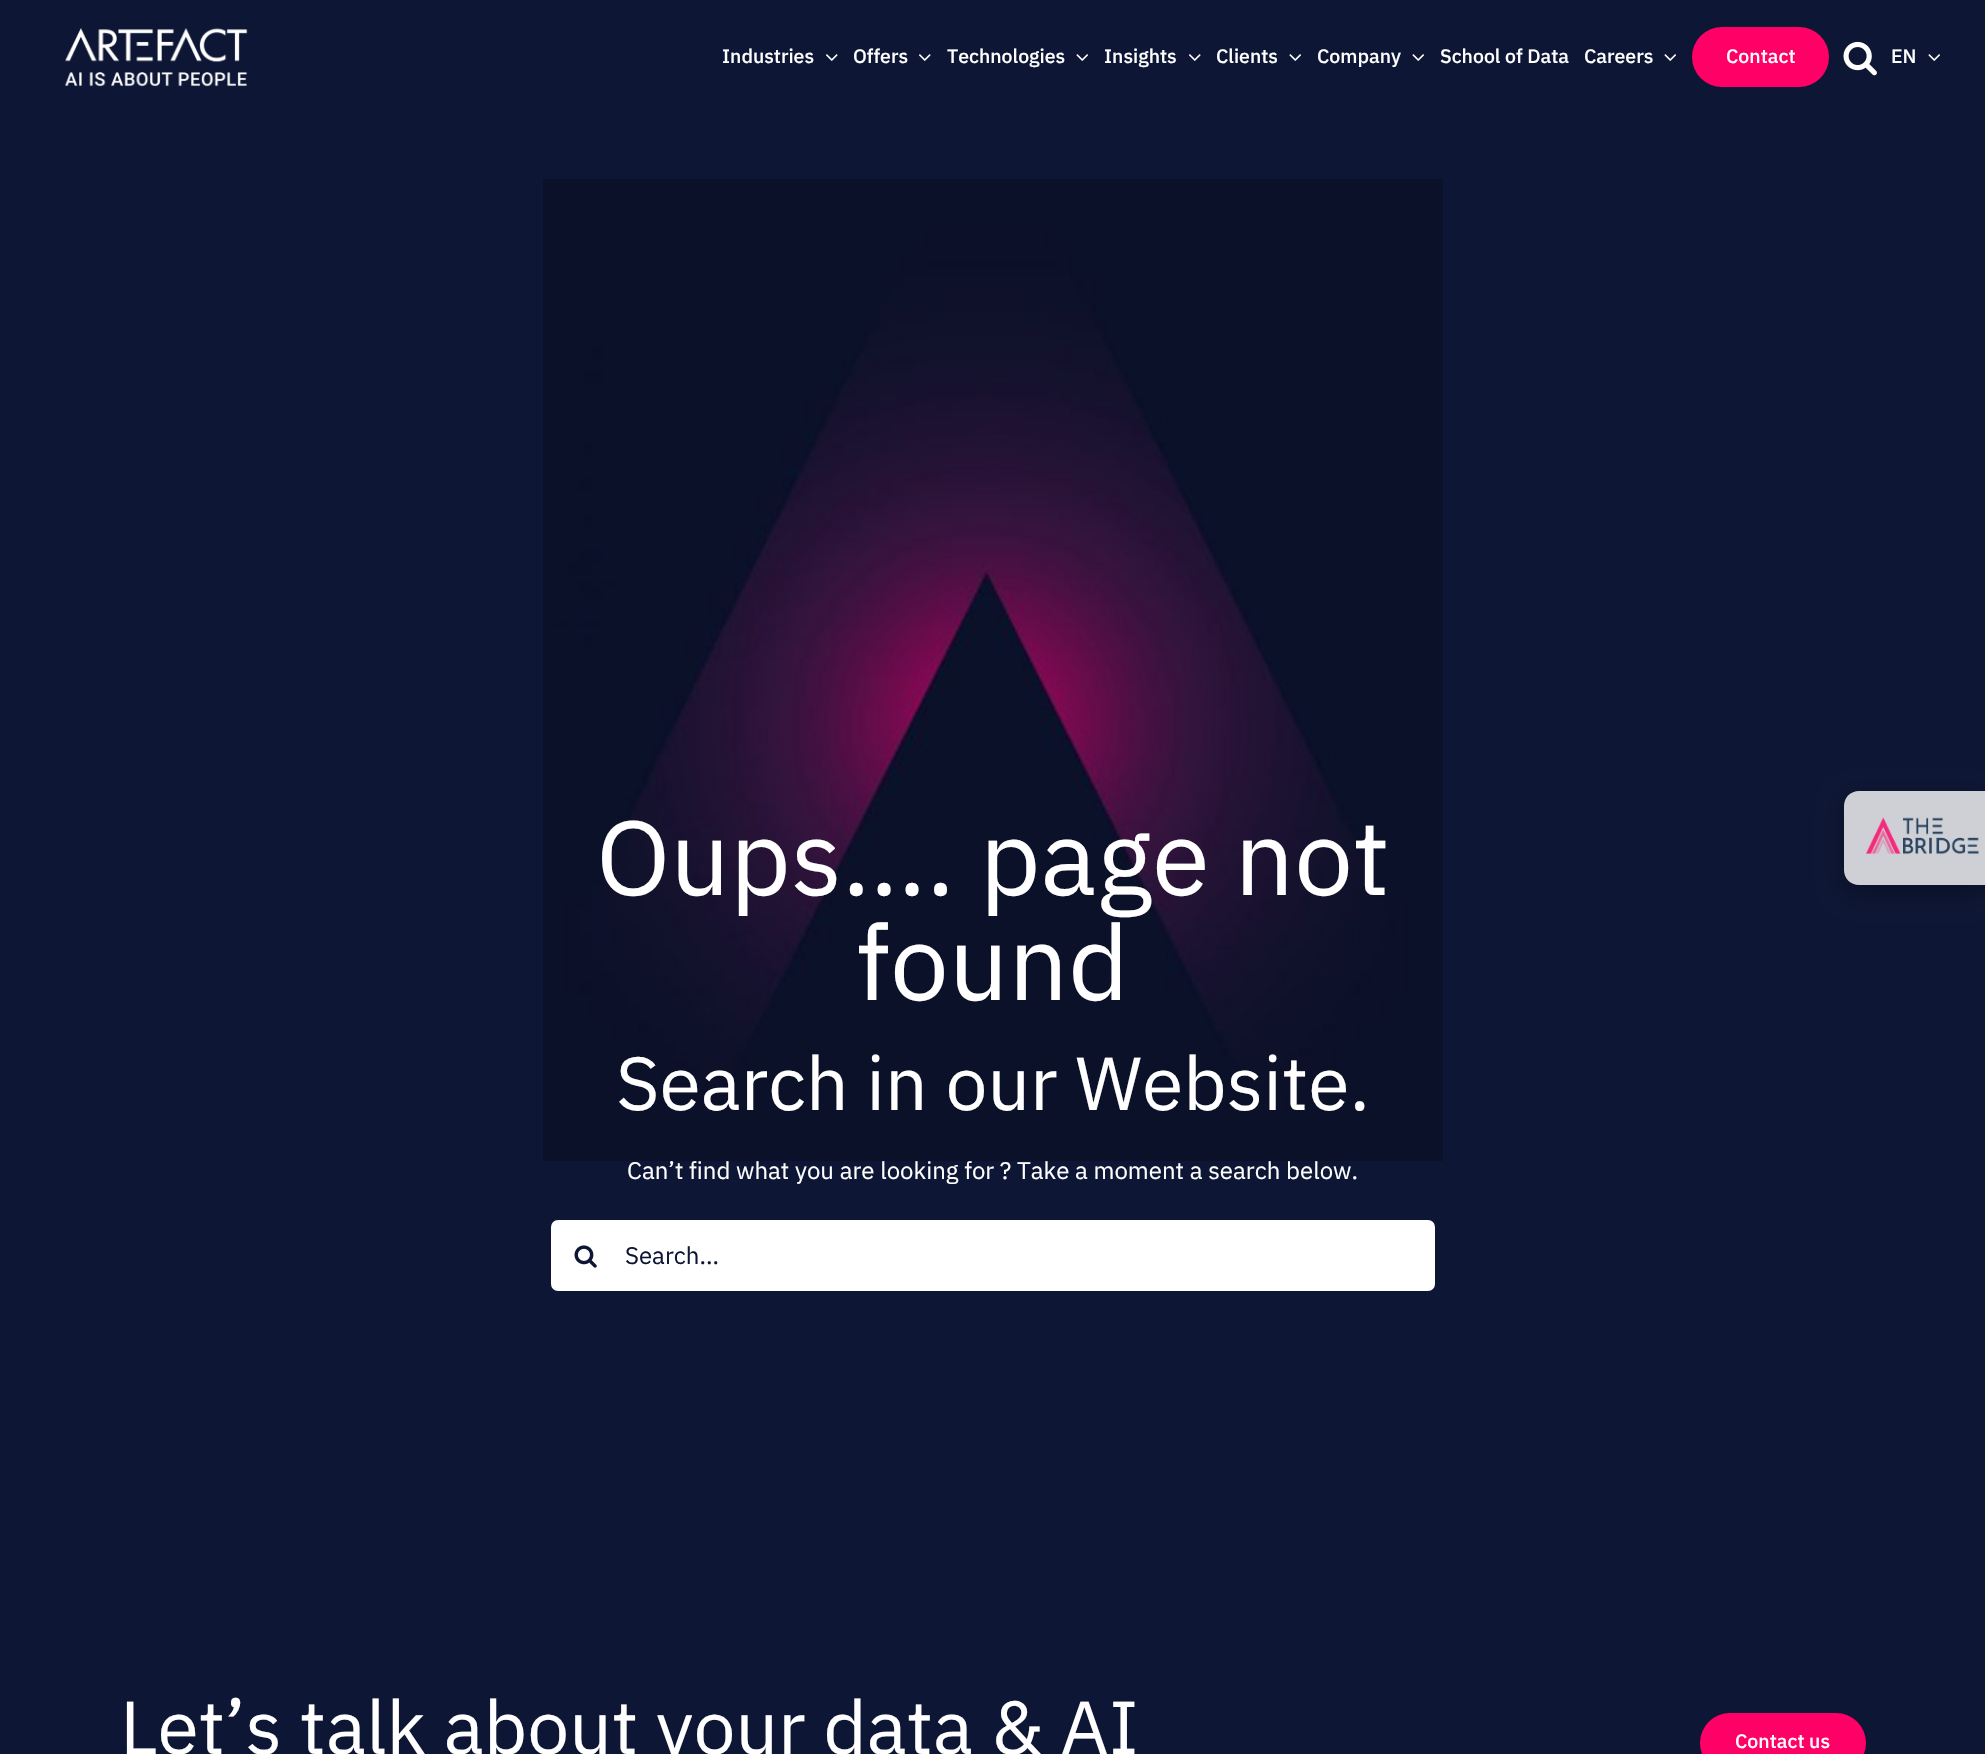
void draw(SkCanvas* canvas) {
    SkPaint paint;
    paint.setAntiAlias(true);
    auto face = [&](const char* family, int weight, float size, bool italic = false) {
        SkFontStyle style(weight, SkFontStyle::kNormal_Width,
            italic ? SkFontStyle::kItalic_Slant : SkFontStyle::kUpright_Slant);
        SkFont result(fontMgr->matchFamilyStyle(family, style), size);
        result.setSubpixel(true);
        return result;
    };
    auto write = [&](const char* s, float x, float y, const SkFont& font, SkColor color) {
        SkPaint ink(SkColor4f::FromColor(color));
        ink.setAntiAlias(true);
        canvas->drawString(s, x, y, font, ink);
    };
    auto card = [&](float x, float y, float w, float h, float radius, SkColor color) {
        SkPaint ink(SkColor4f::FromColor(color));
        ink.setAntiAlias(true);
        canvas->drawRoundRect(SkRect::MakeXYWH(x, y, w, h), radius, radius, ink);
    };
    auto paste = [&](const char* path, float x, float y, float w, float h) {
        auto image = SkImages::DeferredFromEncodedData(SkData::MakeFromFileName(path));
        canvas->drawImageRect(image, SkRect::MakeXYWH(x, y, w, h), SkSamplingOptions());
    };
    canvas->clear(SkColorSetRGB(13, 22, 52));
    paste("pic1.png", 65, 28, 183, 59);
    auto kFont1 = face("IBM Plex Sans", 500, 19.5f);
    write("Industries", 722, 63, kFont1, SK_ColorWHITE);
    paste("pic2.png", 826, 54, 12, 7);
    write("Offers", 853, 63, kFont1, SK_ColorWHITE);
    paste("pic2.png", 919, 54, 12, 7);
    write("Technologies", 947, 63, kFont1, SK_ColorWHITE);
    paste("pic3.png", 1076, 54, 12, 7);
    write("Insights", 1104, 63, kFont1, SK_ColorWHITE);
    paste("pic2.png", 1189, 54, 12, 7);
    write("Clients", 1216, 63, kFont1, SK_ColorWHITE);
    paste("pic3.png", 1289, 54, 12, 7);
    write("Company", 1317, 63, kFont1, SK_ColorWHITE);
    paste("pic3.png", 1412, 54, 12, 7);
    write("School of Data", 1440, 63, kFont1, SK_ColorWHITE);
    write("Careers", 1584, 63, kFont1, SK_ColorWHITE);
    paste("pic3.png", 1664, 54, 12, 7);
    card(1692, 27, 137, 60, 30, SkColorSetRGB(255, 0, 102));
    write("Contact", 1726, 63, kFont1, SK_ColorWHITE);
    paste("pic4.png", 1843, 41, 34, 35);
    write("EN", 1891, 63, kFont1, SK_ColorWHITE);
    paste("pic3.png", 1928, 54, 12, 7);
    paste("pic5.png", 543, 179, 900, 982);
    auto kFont2 = face("IBM Plex Sans", 400, 105);
    write("Oups…. page not", 596, 895, kFont2, SK_ColorWHITE);
    write("found", 856, 1000, kFont2, SK_ColorWHITE);
    auto kFont3 = face("IBM Plex Sans", 400, 75);
    write("Search in our Website.", 616, 1110, kFont3, SK_ColorWHITE);
    auto kFont4 = face("IBM Plex Sans", 400, 24);
    write("Can’t find what you are looking for ? Take a moment a search below.", 627, 1179, kFont4, SK_ColorWHITE);
    paint.setColor(SK_ColorWHITE);
    canvas->drawRoundRect(SkRect::MakeXYWH(550, 1219, 886, 73), 8, 8, paint);
    paint.setStyle(SkPaint::kStroke_Style);
    paint.setStrokeWidth(2);
    paint.setColor(SkColorSetRGB(13, 22, 52));
    canvas->drawRoundRect(SkRect::MakeXYWH(550, 1219, 886, 73), 8, 8, paint);
    paste("pic6.png", 574, 1245, 23, 23);
    write("Search...", 625, 1264, kFont4, SkColorSetRGB(13, 22, 52));
    write("Let’s talk about your data & AI", 120, 1754, kFont3, SK_ColorWHITE);
    card(1700, 1713, 166, 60, 30, SkColorSetRGB(255, 0, 102));
    write("Contact us", 1735, 1748, kFont1, SK_ColorWHITE);
    paint.setStyle(SkPaint::kFill_Style);
    paint.setColor(SkColorSetARGB(74, 3, 4, 10));
    paint.setMaskFilter(SkMaskFilter::MakeBlur(kNormal_SkBlurStyle, 11));
    canvas->drawRoundRect(SkRect::MakeXYWH(1841, 795, 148, 101), 18, 18, paint);
    paint.setMaskFilter(nullptr);
    paint.setColor(SkColorSetRGB(207, 208, 214));
    canvas->drawPath(SkPathBuilder().moveTo(1859, 791).lineTo(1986, 791).lineTo(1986, 885).lineTo(1859, 885).cubicTo(1850.5f, 885, 1844, 878.5f, 1844, 870).lineTo(1844, 806).cubicTo(1844, 797.5f, 1850.5f, 791, 1859, 791).close().detach(), paint);
    paste("pic7.png", 1866, 817, 113, 38);
}
